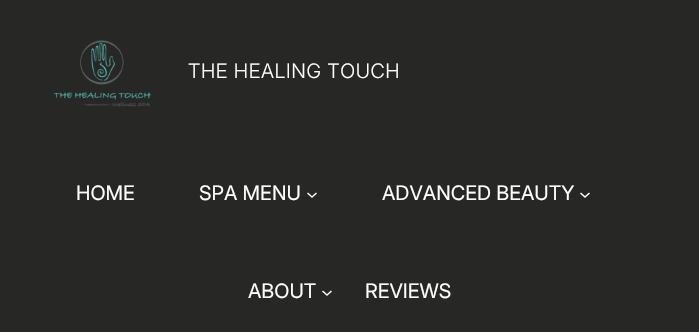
void draw(SkCanvas* canvas) {
    SkPaint paint;
    paint.setAntiAlias(true);
    auto face = [&](const char* family, int weight, float size, bool italic = false) {
        SkFontStyle style(weight, SkFontStyle::kNormal_Width,
            italic ? SkFontStyle::kItalic_Slant : SkFontStyle::kUpright_Slant);
        SkFont result(fontMgr->matchFamilyStyle(family, style), size);
        result.setSubpixel(true);
        return result;
    };
    auto write = [&](const char* s, float x, float y, const SkFont& font, SkColor color) {
        SkPaint ink(SkColor4f::FromColor(color));
        ink.setAntiAlias(true);
        canvas->drawString(s, x, y, font, ink);
    };
    auto writeSpaced = [&](const char* s, float x, float y, const SkFont& font, const SkPaint& ink, float letter, float word) {
        std::vector<SkGlyphID> glyphs(font.countText(s, strlen(s), SkTextEncoding::kUTF8));
        std::vector<float> xs(glyphs.size());
        font.textToGlyphs(s, strlen(s), SkTextEncoding::kUTF8, glyphs);
        font.getXPos(glyphs, xs, x);
        float extra = 0;
        for (size_t i = 0; i < glyphs.size(); i++) {
            xs[i] += extra;
            extra += letter + word * (glyphs[i] == font.unicharToGlyph(' '));
        }
        canvas->drawTextBlob(SkTextBlob::MakeFromPosHGlyphs(glyphs, xs, y, font), 0, 0, ink);
    };
    auto paste = [&](const char* path, float x, float y, float w, float h) {
        auto image = SkImages::DeferredFromEncodedData(SkData::MakeFromFileName(path));
        canvas->drawImageRect(image, SkRect::MakeXYWH(x, y, w, h), SkSamplingOptions());
    };
    canvas->clear(SkColorSetRGB(39, 39, 37));
    paste("pic1.png", 53, 40, 98, 67);
    auto kFont1 = face("Inter", 300, 20);
    paint.setColor(SK_ColorWHITE);
    writeSpaced("THE HEALING TOUCH", 188, 78, kFont1, paint, 0.6f, 0);
    auto kFont2 = face("Inter", 400, 20);
    write("HOME", 76, 200, kFont2, SK_ColorWHITE);
    write("SPA MENU", 199, 200, kFont2, SK_ColorWHITE);
    paint.setStyle(SkPaint::kStroke_Style);
    paint.setStrokeWidth(1.5f);
    canvas->drawPath(SkPathBuilder().moveTo(307.5f, 193).lineTo(312, 197).lineTo(316.5f, 193).detach(), paint);
    write("ADVANCED BEAUTY", 382, 200, kFont2, SK_ColorWHITE);
    canvas->drawPath(SkPathBuilder().moveTo(580.5f, 193).lineTo(585, 197).lineTo(589.5f, 193).detach(), paint);
    write("ABOUT", 248, 298, kFont2, SK_ColorWHITE);
    canvas->drawPath(SkPathBuilder().moveTo(322.5f, 291).lineTo(327, 295).lineTo(331.5f, 291).detach(), paint);
    write("REVIEWS", 365, 298, kFont2, SK_ColorWHITE);
}
